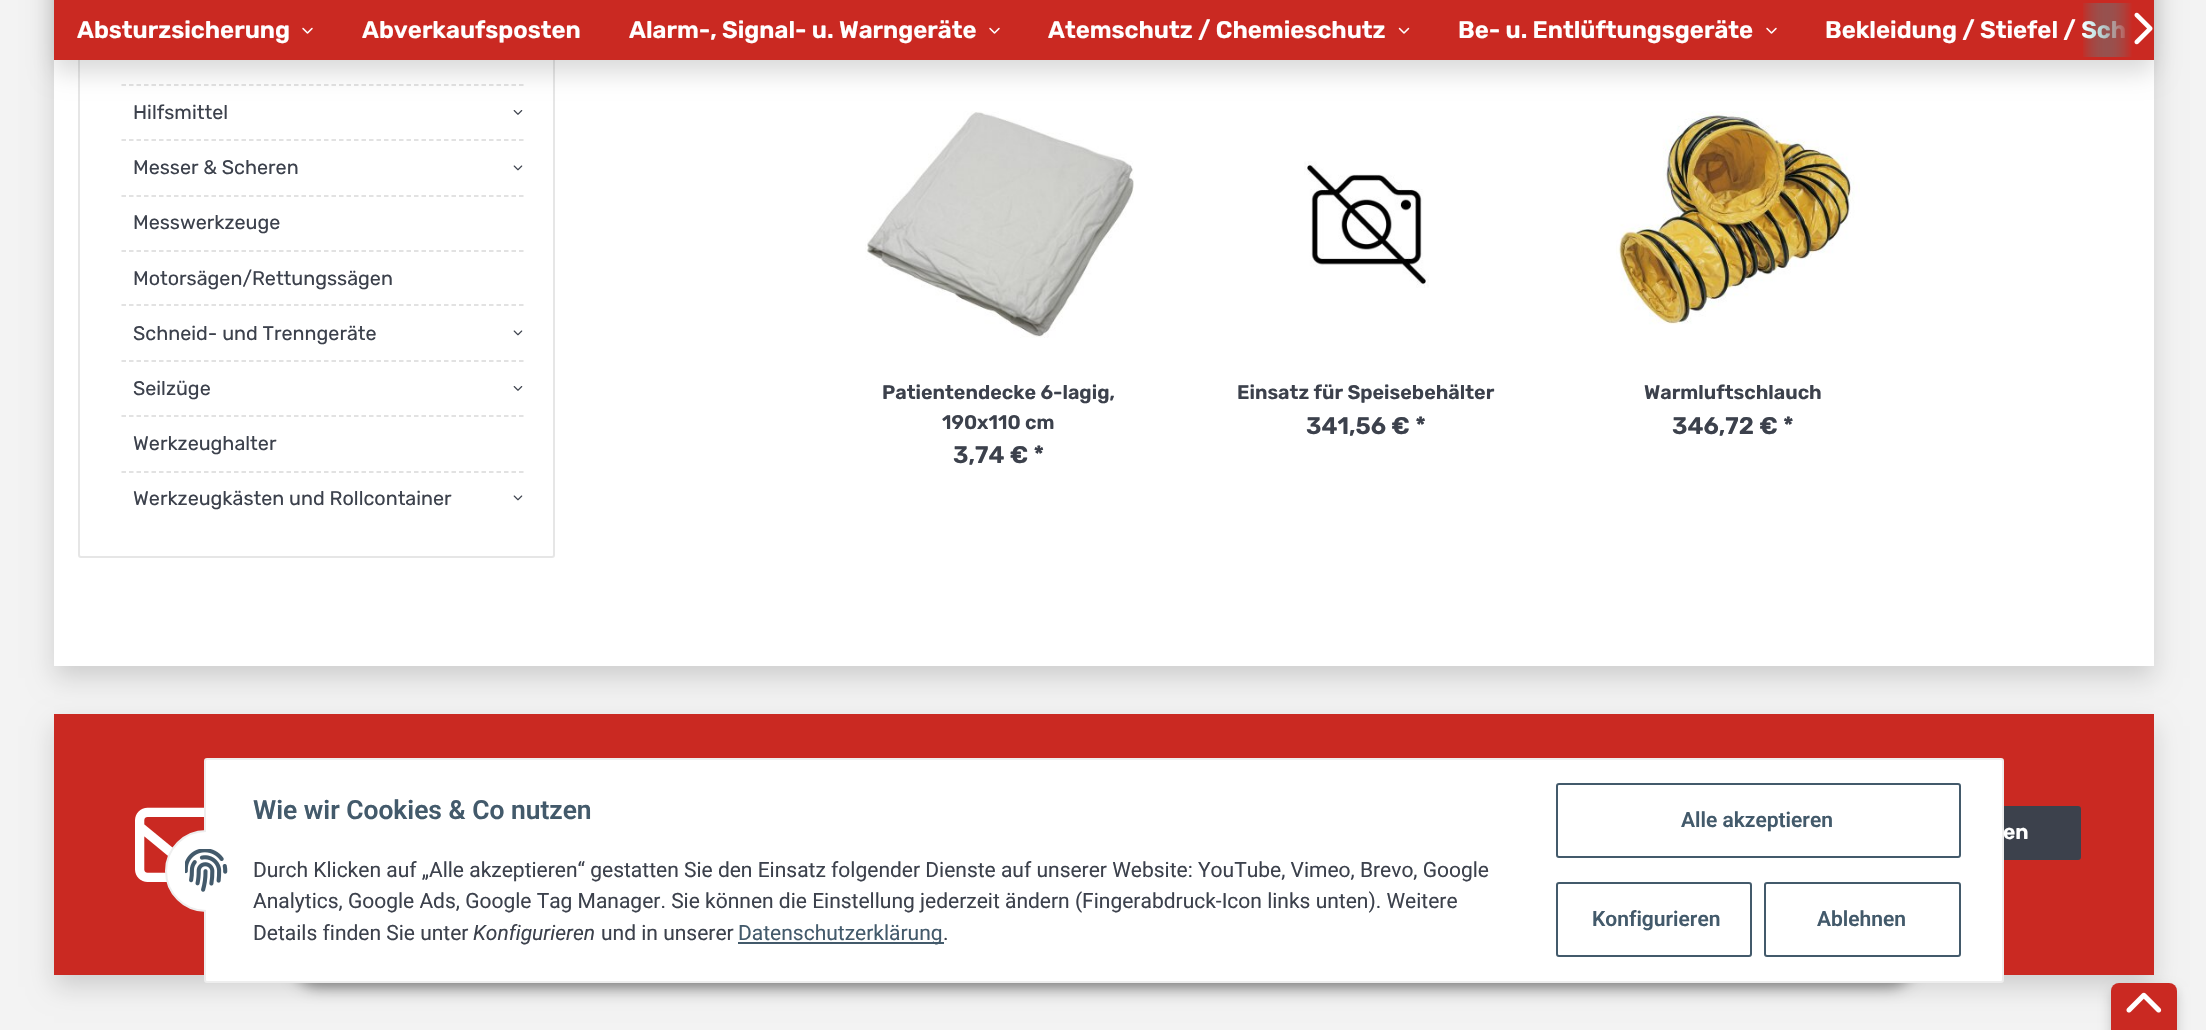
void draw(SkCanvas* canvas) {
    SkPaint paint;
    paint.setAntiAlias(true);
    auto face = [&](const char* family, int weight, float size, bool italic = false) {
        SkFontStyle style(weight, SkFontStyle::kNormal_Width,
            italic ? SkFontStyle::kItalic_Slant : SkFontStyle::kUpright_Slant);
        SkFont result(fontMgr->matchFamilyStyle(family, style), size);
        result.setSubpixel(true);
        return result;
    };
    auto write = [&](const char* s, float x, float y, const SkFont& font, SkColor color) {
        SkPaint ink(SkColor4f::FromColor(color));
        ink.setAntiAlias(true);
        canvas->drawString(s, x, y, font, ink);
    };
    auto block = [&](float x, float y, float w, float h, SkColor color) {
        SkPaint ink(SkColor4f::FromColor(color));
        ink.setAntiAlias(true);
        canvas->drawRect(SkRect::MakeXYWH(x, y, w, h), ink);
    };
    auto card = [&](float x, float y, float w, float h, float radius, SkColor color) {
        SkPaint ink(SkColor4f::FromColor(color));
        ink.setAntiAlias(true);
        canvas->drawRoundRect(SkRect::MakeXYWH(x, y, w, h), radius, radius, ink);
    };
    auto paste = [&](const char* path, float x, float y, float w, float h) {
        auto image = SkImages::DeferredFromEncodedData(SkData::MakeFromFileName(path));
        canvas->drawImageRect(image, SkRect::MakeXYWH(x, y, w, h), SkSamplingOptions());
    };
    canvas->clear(SkColorSetRGB(243, 243, 243));
    paint.setColor(SkColorSetARGB(38, 0, 0, 0));
    paint.setMaskFilter(SkMaskFilter::MakeBlur(kNormal_SkBlurStyle, 12));
    canvas->drawRect(SkRect::MakeXYWH(54, -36, 2100, 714), paint);
    paint.setMaskFilter(nullptr);
    block(54, 60, 2100, 606, SK_ColorWHITE);
    paint.setStyle(SkPaint::kStroke_Style);
    paint.setStrokeWidth(2);
    paint.setColor(SkColorSetRGB(230, 230, 230));
    canvas->drawRoundRect(SkRect::MakeXYWH(79, -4, 475, 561), 2, 2, paint);
    paint.setStrokeWidth(1.5f);
    paint.setColor(SkColorSetRGB(217, 217, 217));
    paint.setPathEffect(SkDashPathEffect::Make({{4.5f, 3}}, 0));
    canvas->drawPath(SkPathBuilder().moveTo(121.5f, 85).lineTo(523.5f, 85).detach(), paint);
    paint.setPathEffect(nullptr);
    paint.setStyle(SkPaint::kFill_Style);
    paint.setColor(SkColorSetARGB(38, 0, 0, 0));
    paint.setMaskFilter(SkMaskFilter::MakeBlur(kNormal_SkBlurStyle, 12));
    canvas->drawRoundRect(SkRect::MakeXYWH(54, -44, 2100, 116), 8, 8, paint);
    paint.setMaskFilter(nullptr);
    block(54, 0, 2100, 60, SkColorSetRGB(202, 41, 34));
    auto kFont1 = face("Rubik", 600, 24);
    write("Bekleidung / Stiefel / Sch", 1825, 38, kFont1, SK_ColorWHITE);
    {
        const SkColor colors[] = {SkColorSetARGB(3, 1, 198, 207), SkColorSetRGB(202, 41, 34)};
        const float stops[] = {0, 0.7f};
        const SkPoint ends[] = {{2082, 30}, {2154, 30}};
        paint.setShader(SkGradientShader::MakeLinear(ends, colors, stops, 2, SkTileMode::kClamp));
        paint.setAlpha(255);
    }
    canvas->drawRect(SkRect::MakeXYWH(2083, 3, 49, 54), paint);
    paste("pic1.png", 2134, 12, 19, 33);
    write("Absturzsicherung", 77, 38, kFont1, SK_ColorWHITE);
    paste("pic2.png", 302, 27, 11, 7);
    write("Abverkaufsposten", 362, 38, kFont1, SK_ColorWHITE);
    write("Alarm-, Signal- u. Warngeräte", 629, 38, kFont1, SK_ColorWHITE);
    paste("pic2.png", 989, 27, 11, 7);
    write("Atemschutz / Chemieschutz", 1048, 38, kFont1, SK_ColorWHITE);
    paste("pic3.png", 1398, 27, 12, 7);
    write("Be- u. Entlüftungsgeräte", 1458, 38, kFont1, SK_ColorWHITE);
    paste("pic2.png", 1766, 27, 11, 7);
    paint.setStyle(SkPaint::kStroke_Style);
    paint.setShader(nullptr);
    paint.setColor(SkColorSetRGB(217, 217, 217));
    paint.setPathEffect(SkDashPathEffect::Make({{4.5f, 3}}, 0));
    canvas->drawPath(SkPathBuilder().moveTo(121.5f, 140).lineTo(523.5f, 140).detach(), paint);
    paint.setPathEffect(nullptr);
    auto kFont2 = face("Rubik", 300, 19.75f);
    write("Hilfsmittel", 133, 119, kFont2, SkColorSetRGB(60, 65, 76));
    paste("pic4.png", 513, 110, 10, 5);
    paint.setPathEffect(SkDashPathEffect::Make({{4.5f, 3}}, 0));
    canvas->drawPath(SkPathBuilder().moveTo(121.5f, 196).lineTo(523.5f, 196).detach(), paint);
    paint.setPathEffect(nullptr);
    write("Messer & Scheren", 133, 174, kFont2, SkColorSetRGB(60, 65, 76));
    paste("pic5.png", 513, 165, 10, 6);
    paint.setPathEffect(SkDashPathEffect::Make({{4.5f, 3}}, 0));
    canvas->drawPath(SkPathBuilder().moveTo(121.5f, 251).lineTo(523.5f, 251).detach(), paint);
    paint.setPathEffect(nullptr);
    write("Messwerkzeuge", 133, 229, kFont2, SkColorSetRGB(60, 65, 76));
    paint.setPathEffect(SkDashPathEffect::Make({{4.5f, 3}}, 0));
    canvas->drawPath(SkPathBuilder().moveTo(121.5f, 305).lineTo(523.5f, 305).detach(), paint);
    paint.setPathEffect(nullptr);
    write("Motorsägen/Rettungssägen", 133, 285, kFont2, SkColorSetRGB(60, 65, 76));
    paint.setPathEffect(SkDashPathEffect::Make({{4.5f, 3}}, 0));
    canvas->drawPath(SkPathBuilder().moveTo(121.5f, 361).lineTo(523.5f, 361).detach(), paint);
    paint.setPathEffect(nullptr);
    write("Schneid- und Trenngeräte", 133, 340, kFont2, SkColorSetRGB(60, 65, 76));
    paste("pic5.png", 513, 330, 10, 6);
    paint.setPathEffect(SkDashPathEffect::Make({{4.5f, 3}}, 0));
    canvas->drawPath(SkPathBuilder().moveTo(121.5f, 416).lineTo(523.5f, 416).detach(), paint);
    paint.setPathEffect(nullptr);
    write("Seilzüge", 133, 395, kFont2, SkColorSetRGB(60, 65, 76));
    paste("pic4.png", 513, 386, 10, 5);
    paint.setPathEffect(SkDashPathEffect::Make({{4.5f, 3}}, 0));
    canvas->drawPath(SkPathBuilder().moveTo(121.5f, 472).lineTo(523.5f, 472).detach(), paint);
    paint.setPathEffect(nullptr);
    write("Werkzeughalter", 133, 450, kFont2, SkColorSetRGB(60, 65, 76));
    write("Werkzeugkästen und Rollcontainer", 133, 505, kFont2, SkColorSetRGB(60, 65, 76));
    paste("pic5.png", 513, 495, 10, 6);
    paste("pic6.png", 865, 111, 269, 227);
    auto kFont3 = face("Rubik", 600, 19.75f);
    write("Patientendecke 6-lagig,", 882, 399, kFont3, SkColorSetRGB(60, 65, 76));
    write("190x110 cm", 942, 429, kFont3, SkColorSetRGB(60, 65, 76));
    write("3,74 € *", 953, 463, kFont1, SkColorSetRGB(60, 65, 76));
    paste("pic7.png", 1304, 161, 125, 127);
    write("Einsatz für Speisebehälter", 1237, 399, kFont3, SkColorSetRGB(60, 65, 76));
    write("341,56 € *", 1306, 434, kFont1, SkColorSetRGB(60, 65, 76));
    paste("pic8.png", 1616, 111, 244, 214);
    write("Warmluftschlauch", 1644, 399, kFont3, SkColorSetRGB(60, 65, 76));
    write("346,72 € *", 1672, 434, kFont1, SkColorSetRGB(60, 65, 76));
    paint.setStyle(SkPaint::kFill_Style);
    paint.setColor(SkColorSetARGB(38, 0, 0, 0));
    paint.setMaskFilter(SkMaskFilter::MakeBlur(kNormal_SkBlurStyle, 12));
    canvas->drawRect(SkRect::MakeXYWH(54, 726, 2100, 261), paint);
    paint.setMaskFilter(nullptr);
    block(54, 714, 2100, 261, SkColorSetRGB(202, 41, 34));
    paint.setColor(SkColorSetARGB(115, 0, 0, 0));
    paint.setMaskFilter(SkMaskFilter::MakeBlur(kNormal_SkBlurStyle, 7.5f));
    canvas->drawRoundRect(SkRect::MakeXYWH(294, 939, 1619, 48), 24, 24, paint);
    paint.setMaskFilter(nullptr);
    paint.setColor(SkColorSetRGB(60, 65, 76));
    canvas->drawPath(SkPathBuilder().moveTo(1857, 807).lineTo(2078, 807).cubicTo(2079, 807, 2080, 808, 2080, 809).lineTo(2080, 857).cubicTo(2080, 858, 2079, 859, 2078, 859).lineTo(1857, 859).close().detach(), paint);
    paint.setStyle(SkPaint::kStroke_Style);
    paint.setStrokeWidth(2);
    canvas->drawPath(SkPathBuilder().moveTo(1857, 807).lineTo(2078, 807).cubicTo(2079, 807, 2080, 808, 2080, 809).lineTo(2080, 857).cubicTo(2080, 858, 2079, 859, 2078, 859).lineTo(1857, 859).close().detach(), paint);
    paint.setStyle(SkPaint::kFill_Style);
    paint.setColor(SK_ColorWHITE);
    canvas->drawRoundRect(SkRect::MakeXYWH(205, 759, 1798, 223), 2, 2, paint);
    paint.setStyle(SkPaint::kStroke_Style);
    paint.setColor(SkColorSetRGB(238, 238, 238));
    canvas->drawRoundRect(SkRect::MakeXYWH(205, 759, 1798, 223), 2, 2, paint);
    paste("pic10.png", 135, 807, 69, 75);
    paint.setStyle(SkPaint::kFill_Style);
    paint.setColor(SK_ColorWHITE);
    canvas->drawRoundRect(SkRect::MakeXYWH(166, 831, 81, 80), 40, 40, paint);
    paint.setStyle(SkPaint::kStroke_Style);
    paint.setColor(SkColorSetRGB(238, 238, 238));
    canvas->drawRoundRect(SkRect::MakeXYWH(166, 831, 81, 80), 40, 40, paint);
    block(206, 830, 42, 82, SK_ColorWHITE);
    paste("pic9.png", 185, 849, 43, 43);
    auto kFont4 = face("Roboto", 600, 26.4f);
    write("Wie wir Cookies & Co nutzen", 253, 819, kFont4, SkColorSetRGB(67, 90, 107));
    auto kFont5 = face("Roboto", 400, 21);
    write("Durch Klicken auf „Alle akzeptieren“ gestatten Sie den Einsatz folgender Dienste auf unserer Website: YouTube, Vimeo, Brevo, Google", 253, 877, kFont5, SkColorSetRGB(60, 65, 76));
    write("Analytics, Google Ads, Google Tag Manager. Sie können die Einstellung jederzeit ändern (Fingerabdruck-Icon links unten). Weitere", 253, 908, kFont5, SkColorSetRGB(60, 65, 76));
    write("Details finden Sie unter", 253, 940, kFont5, SkColorSetRGB(60, 65, 76));
    auto kFont6 = face("Roboto", 400, 21, true);
    write("Konfigurieren", 473, 940, kFont6, SkColorSetRGB(60, 65, 76));
    write("und in unserer", 601, 940, kFont5, SkColorSetRGB(60, 65, 76));
    block(738, 942, 206, 2, SkColorSetRGB(67, 90, 107));
    write("Datenschutzerklärung", 738, 940, kFont5, SkColorSetRGB(67, 90, 107));
    write(".", 943, 940, kFont5, SkColorSetRGB(60, 65, 76));
    paint.setColor(SkColorSetRGB(67, 90, 107));
    canvas->drawRoundRect(SkRect::MakeXYWH(1557, 784, 403, 73), 2, 2, paint);
    auto kFont7 = face("Roboto", 600, 21);
    write("Alle akzeptieren", 1681, 827, kFont7, SkColorSetRGB(67, 90, 107));
    canvas->drawRoundRect(SkRect::MakeXYWH(1557, 883, 194, 73), 2, 2, paint);
    write("Konfigurieren", 1592, 926, kFont7, SkColorSetRGB(67, 90, 107));
    canvas->drawRoundRect(SkRect::MakeXYWH(1765, 883, 195, 73), 2, 2, paint);
    write("Ablehnen", 1817, 926, kFont7, SkColorSetRGB(67, 90, 107));
    auto kFont8 = face("Rubik", 600, 21);
    write("en", 2003, 839, kFont8, SK_ColorWHITE);
    paint.setStyle(SkPaint::kFill_Style);
    paint.setColor(SkColorSetARGB(51, 0, 0, 0));
    paint.setMaskFilter(SkMaskFilter::MakeBlur(kNormal_SkBlurStyle, 6));
    canvas->drawRoundRect(SkRect::MakeXYWH(2111, 989, 66, 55), 8, 8, paint);
    paint.setMaskFilter(nullptr);
    card(2111, 983, 66, 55, 8, SkColorSetRGB(202, 41, 34));
    paste("pic11.png", 2126, 992, 36, 21);
}
